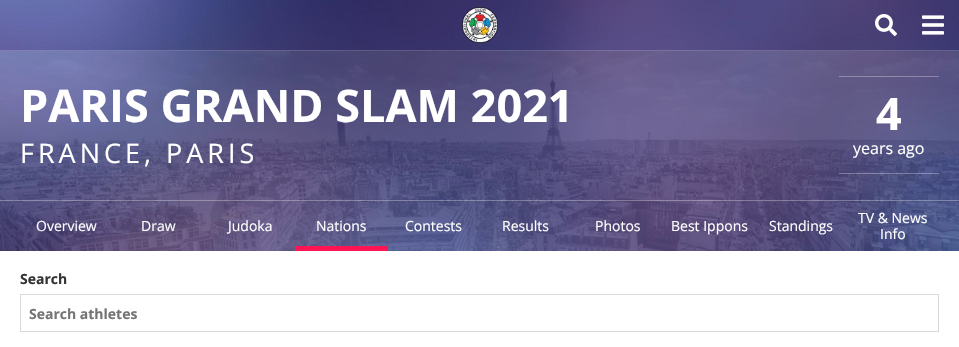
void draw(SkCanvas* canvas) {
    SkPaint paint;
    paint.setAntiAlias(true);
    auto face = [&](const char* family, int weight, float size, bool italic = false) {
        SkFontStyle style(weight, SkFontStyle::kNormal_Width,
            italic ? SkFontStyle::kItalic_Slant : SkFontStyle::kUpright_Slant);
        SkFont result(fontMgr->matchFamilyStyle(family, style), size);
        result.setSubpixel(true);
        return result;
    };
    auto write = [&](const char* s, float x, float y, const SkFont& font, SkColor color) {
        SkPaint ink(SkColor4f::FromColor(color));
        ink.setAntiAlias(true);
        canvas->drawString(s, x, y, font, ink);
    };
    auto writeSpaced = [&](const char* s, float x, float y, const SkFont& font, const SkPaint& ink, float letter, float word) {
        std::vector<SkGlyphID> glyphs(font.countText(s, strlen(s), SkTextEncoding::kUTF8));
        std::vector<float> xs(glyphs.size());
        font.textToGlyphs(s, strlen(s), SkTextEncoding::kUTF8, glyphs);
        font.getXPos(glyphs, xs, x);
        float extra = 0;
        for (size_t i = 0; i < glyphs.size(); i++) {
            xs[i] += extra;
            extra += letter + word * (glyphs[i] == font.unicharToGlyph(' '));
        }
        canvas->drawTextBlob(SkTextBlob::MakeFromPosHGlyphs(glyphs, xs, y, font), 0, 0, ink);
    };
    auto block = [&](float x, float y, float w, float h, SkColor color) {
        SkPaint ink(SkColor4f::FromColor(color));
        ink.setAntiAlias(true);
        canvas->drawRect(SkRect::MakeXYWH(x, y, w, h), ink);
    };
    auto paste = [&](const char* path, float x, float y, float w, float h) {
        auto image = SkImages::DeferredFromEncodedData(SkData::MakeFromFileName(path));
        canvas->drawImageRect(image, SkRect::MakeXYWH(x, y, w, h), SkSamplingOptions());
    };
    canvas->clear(SK_ColorWHITE);
    paste("pic1.png", 0, 0, 959, 51);
    block(0, 50, 959, 1, SkColorSetARGB(51, 255, 255, 255));
    paste("pic2.png", 462, 7, 36, 36);
    paste("pic3.png", 875, 14, 22, 22);
    paste("pic4.png", 922, 15, 22, 20);
    paste("pic5.png", 0, 51, 959, 200);
    paste("pic6.png", 0, 51, 959, 200);
    auto kFont1 = face("Open Sans", 700, 45);
    write("PARIS GRAND SLAM 2021", 20, 122, kFont1, SK_ColorWHITE);
    auto kFont2 = face("Open Sans", 400, 27);
    paint.setColor(SK_ColorWHITE);
    writeSpaced("FRANCE, PARIS", 20, 163, kFont2, paint, 4, 0);
    block(839, 76, 100, 1, SkColorSetARGB(77, 255, 255, 255));
    block(839, 173, 100, 1, SkColorSetARGB(77, 255, 255, 255));
    write("4", 876, 130, kFont1, SK_ColorWHITE);
    auto kFont3 = face("Open Sans", 400, 16);
    write("years ago", 853, 154, kFont3, SK_ColorWHITE);
    block(0, 200, 959, 1, SkColorSetARGB(77, 255, 255, 255));
    auto kFont4 = face("Open Sans", 400, 14);
    write("Overview", 36, 231, kFont4, SK_ColorWHITE);
    write("Draw", 141, 231, kFont4, SK_ColorWHITE);
    write("Judoka", 228, 231, kFont4, SK_ColorWHITE);
    write("Nations", 316, 231, kFont4, SK_ColorWHITE);
    block(296, 246, 92, 5, SkColorSetRGB(255, 21, 83));
    write("Contests", 405, 231, kFont4, SK_ColorWHITE);
    write("Results", 502, 231, kFont4, SK_ColorWHITE);
    write("Photos", 595, 231, kFont4, SK_ColorWHITE);
    write("Best Ippons", 671, 231, kFont4, SK_ColorWHITE);
    write("Standings", 769, 231, kFont4, SK_ColorWHITE);
    write("TV & News", 858, 223, kFont4, SK_ColorWHITE);
    write("Info", 880, 239, kFont4, SK_ColorWHITE);
    auto kFont5 = face("Open Sans", 700, 14);
    write("Search", 20, 284, kFont5, SkColorSetRGB(51, 51, 51));
    paint.setStyle(SkPaint::kStroke_Style);
    paint.setStrokeWidth(1);
    paint.setColor(SkColorSetRGB(217, 217, 217));
    canvas->drawRect(SkRect::MakeXYWH(20.5f, 294.5f, 918, 37), paint);
    write("Search athletes", 29, 319, kFont5, SkColorSetRGB(117, 117, 117));
}
